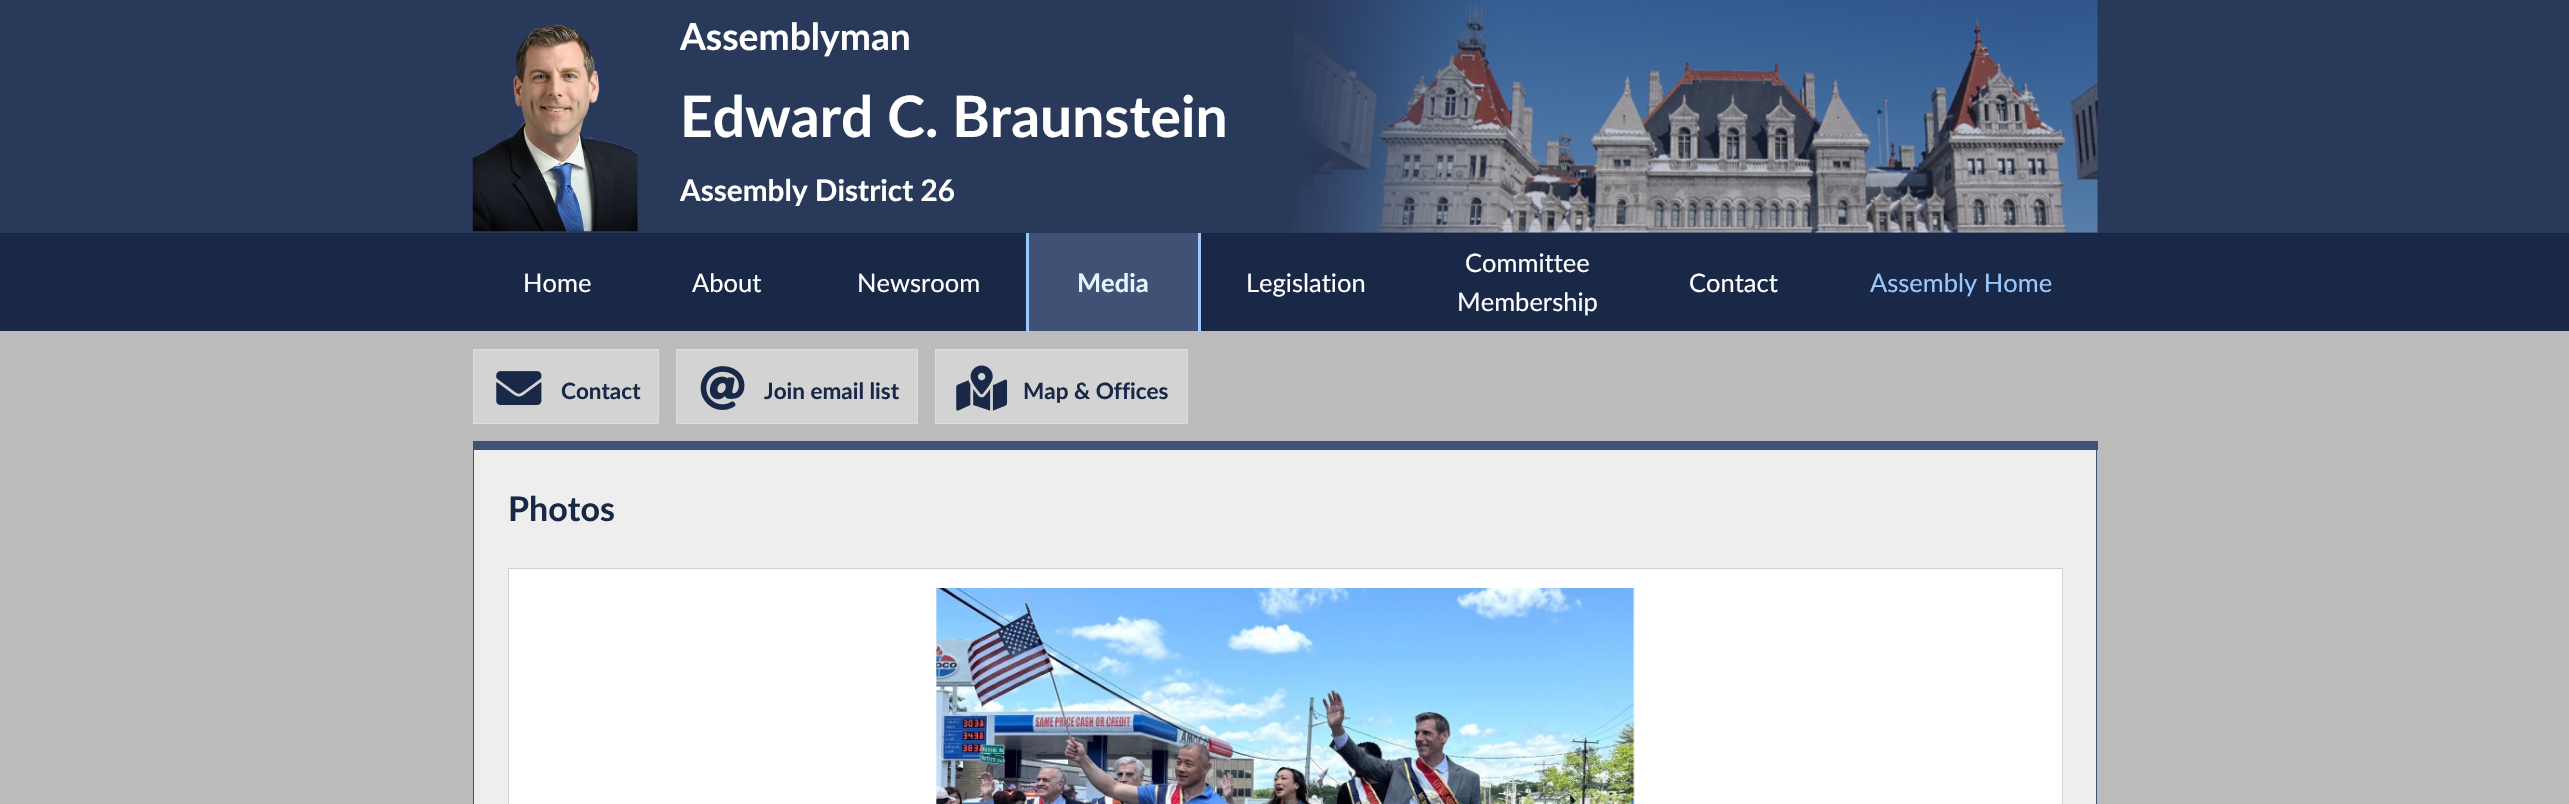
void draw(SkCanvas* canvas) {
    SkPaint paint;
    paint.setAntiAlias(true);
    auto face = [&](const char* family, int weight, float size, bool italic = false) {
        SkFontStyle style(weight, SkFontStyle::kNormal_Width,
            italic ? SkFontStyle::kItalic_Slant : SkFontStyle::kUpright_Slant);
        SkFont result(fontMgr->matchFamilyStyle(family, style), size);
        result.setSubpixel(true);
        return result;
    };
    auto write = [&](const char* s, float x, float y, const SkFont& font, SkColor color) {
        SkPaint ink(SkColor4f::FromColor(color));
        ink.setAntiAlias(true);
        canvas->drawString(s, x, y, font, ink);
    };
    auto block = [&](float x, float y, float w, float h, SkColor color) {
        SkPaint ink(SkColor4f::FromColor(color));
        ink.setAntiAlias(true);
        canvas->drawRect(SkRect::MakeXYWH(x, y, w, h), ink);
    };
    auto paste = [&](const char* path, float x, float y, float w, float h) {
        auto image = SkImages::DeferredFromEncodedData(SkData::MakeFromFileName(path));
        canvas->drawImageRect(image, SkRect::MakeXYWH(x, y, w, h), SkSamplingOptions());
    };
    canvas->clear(SkColorSetRGB(187, 187, 187));
    block(0, 0, 2569, 233, SkColorSetRGB(41, 57, 90));
    paste("pic1.png", 1293, 0, 805, 233);
    paste("pic2.png", 472, 24, 166, 208);
    auto kFont1 = face("Lato", 700, 37.25f);
    write("Assemblyman", 680, 50, kFont1, SK_ColorWHITE);
    auto kFont2 = face("Lato", 700, 57);
    write("Edward C. Braunstein", 680, 137, kFont2, SK_ColorWHITE);
    auto kFont3 = face("Lato", 700, 29.75f);
    write("Assembly District 26", 680, 201, kFont3, SK_ColorWHITE);
    block(0, 233, 2569, 98, SkColorSetRGB(25, 40, 71));
    auto kFont4 = face("Lato", 400, 25.5f);
    write("Home", 523, 292, kFont4, SK_ColorWHITE);
    write("About", 692, 292, kFont4, SK_ColorWHITE);
    write("Newsroom", 857, 292, kFont4, SK_ColorWHITE);
    block(1029, 233, 169, 98, SkColorSetRGB(64, 81, 117));
    block(1198, 233, 3, 98, SkColorSetRGB(155, 201, 255));
    block(1026, 233, 3, 98, SkColorSetRGB(155, 201, 255));
    auto kFont5 = face("Lato", 700, 25.5f);
    write("Media", 1077, 292, kFont5, SkColorSetRGB(228, 245, 255));
    write("Legislation", 1246, 292, kFont4, SK_ColorWHITE);
    write("Committee", 1465, 272, kFont4, SK_ColorWHITE);
    write("Membership", 1457, 311, kFont4, SK_ColorWHITE);
    write("Contact", 1689, 292, kFont4, SK_ColorWHITE);
    write("Assembly Home", 1870, 292, kFont4, SkColorSetRGB(155, 201, 255));
    paint.setColor(SkColorSetRGB(211, 211, 211));
    canvas->drawRect(SkRect::MakeXYWH(473.5f, 349.5f, 185, 74), paint);
    paint.setStyle(SkPaint::kStroke_Style);
    paint.setStrokeWidth(1);
    paint.setColor(SkColorSetRGB(221, 221, 221));
    canvas->drawRect(SkRect::MakeXYWH(473.5f, 349.5f, 185, 74), paint);
    paste("pic3.png", 496, 371, 46, 34);
    auto kFont6 = face("Lato", 700, 22.5f);
    write("Contact", 561, 399, kFont6, SkColorSetRGB(25, 40, 71));
    paint.setStyle(SkPaint::kFill_Style);
    paint.setColor(SkColorSetRGB(211, 211, 211));
    canvas->drawRect(SkRect::MakeXYWH(676.5f, 349.5f, 241, 74), paint);
    paint.setStyle(SkPaint::kStroke_Style);
    paint.setColor(SkColorSetRGB(221, 221, 221));
    canvas->drawRect(SkRect::MakeXYWH(676.5f, 349.5f, 241, 74), paint);
    paste("pic4.png", 700, 366, 45, 44);
    write("Join email list", 764, 399, kFont6, SkColorSetRGB(25, 40, 71));
    paint.setStyle(SkPaint::kFill_Style);
    paint.setColor(SkColorSetRGB(211, 211, 211));
    canvas->drawRect(SkRect::MakeXYWH(935.5f, 349.5f, 252, 74), paint);
    paint.setStyle(SkPaint::kStroke_Style);
    paint.setColor(SkColorSetRGB(221, 221, 221));
    canvas->drawRect(SkRect::MakeXYWH(935.5f, 349.5f, 252, 74), paint);
    paste("pic5.png", 956, 365, 52, 46);
    write("Map & Offices", 1023, 399, kFont6, SkColorSetRGB(25, 40, 71));
    block(474, 450, 1622, 354, SkColorSetRGB(238, 238, 238));
    block(474, 441, 1624, 9, SkColorSetRGB(64, 81, 117));
    block(2096, 450, 1, 354, SkColorSetRGB(64, 81, 117));
    block(473, 441, 1, 363, SkColorSetRGB(64, 81, 117));
    auto kFont7 = face("Lato", 700, 34);
    write("Photos", 508, 521, kFont7, SkColorSetRGB(25, 40, 71));
    paint.setStyle(SkPaint::kFill_Style);
    paint.setColor(SK_ColorWHITE);
    canvas->drawRect(SkRect::MakeXYWH(508.5f, 568.5f, 1554, 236), paint);
    paint.setStyle(SkPaint::kStroke_Style);
    paint.setColor(SkColorSetRGB(209, 209, 209));
    canvas->drawRect(SkRect::MakeXYWH(508.5f, 568.5f, 1554, 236), paint);
    paste("pic6.png", 936, 588, 699, 216);
}
